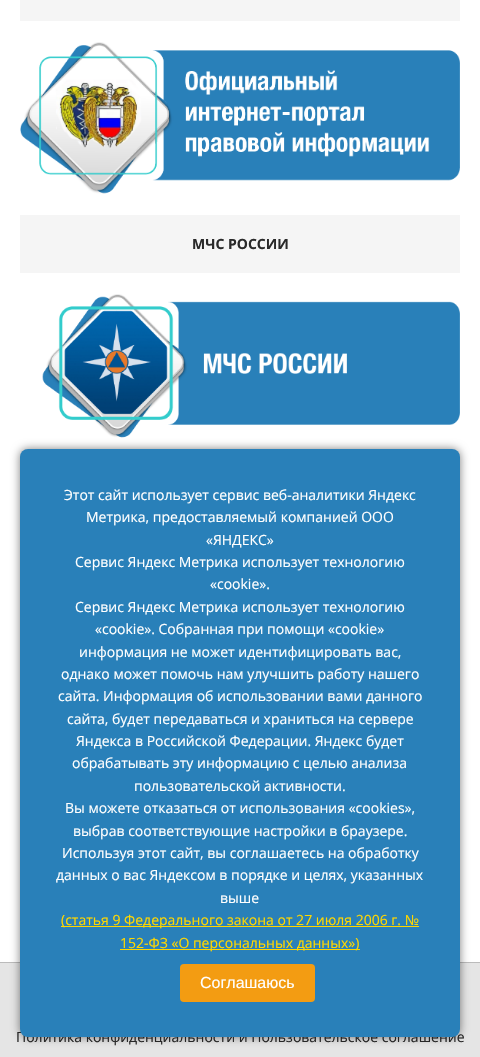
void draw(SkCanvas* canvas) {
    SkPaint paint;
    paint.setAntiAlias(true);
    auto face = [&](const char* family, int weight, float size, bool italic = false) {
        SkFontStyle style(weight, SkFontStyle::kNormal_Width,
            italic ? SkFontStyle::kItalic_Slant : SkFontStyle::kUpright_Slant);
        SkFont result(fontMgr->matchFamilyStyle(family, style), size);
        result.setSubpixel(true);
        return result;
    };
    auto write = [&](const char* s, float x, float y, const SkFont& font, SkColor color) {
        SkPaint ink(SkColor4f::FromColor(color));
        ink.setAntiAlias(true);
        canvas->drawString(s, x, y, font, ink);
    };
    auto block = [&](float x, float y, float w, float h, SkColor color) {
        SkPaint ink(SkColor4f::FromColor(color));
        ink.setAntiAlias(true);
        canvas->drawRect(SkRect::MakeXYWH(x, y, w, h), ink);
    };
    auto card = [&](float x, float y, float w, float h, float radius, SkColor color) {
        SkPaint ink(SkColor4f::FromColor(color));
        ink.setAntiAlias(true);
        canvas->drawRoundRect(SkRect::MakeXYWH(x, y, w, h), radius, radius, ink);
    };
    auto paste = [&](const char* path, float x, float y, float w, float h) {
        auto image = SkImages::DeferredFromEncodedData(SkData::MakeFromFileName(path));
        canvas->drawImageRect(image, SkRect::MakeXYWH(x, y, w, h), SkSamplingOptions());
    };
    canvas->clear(SK_ColorWHITE);
    block(20, 0, 440, 21, SkColorSetRGB(245, 245, 245));
    paste("pic1.png", 20, 42, 440, 152);
    block(20, 215, 440, 58, SkColorSetRGB(245, 245, 245));
    auto kFont1 = face("Open Sans", 700, 14);
    write("МЧС РОССИИ", 192, 249, kFont1, SkColorSetRGB(42, 42, 42));
    paste("pic2.png", 42, 294, 418, 144);
    block(0, 963, 480, 94, SkColorSetRGB(229, 229, 229));
    block(0, 962, 480, 1, SkColorSetRGB(187, 187, 187));
    auto kFont2 = face("Open Sans", 400, 14);
    write("Политика конфиденциальности и Пользовательское соглашение", 16, 1042, kFont2, SkColorSetRGB(42, 42, 42));
    paint.setColor(SkColorSetARGB(128, 0, 0, 0));
    paint.setMaskFilter(SkMaskFilter::MakeBlur(kNormal_SkBlurStyle, 5));
    canvas->drawRoundRect(SkRect::MakeXYWH(20, 449, 440, 588), 8, 8, paint);
    paint.setMaskFilter(nullptr);
    card(20, 449, 440, 588, 8, SkColorSetRGB(41, 128, 185));
    write("Этот сайт использует сервис веб-аналитики Яндекс", 64, 500, kFont2, SK_ColorWHITE);
    write("Метрика, предоставляемый компанией ООО", 86, 522, kFont2, SK_ColorWHITE);
    write("«ЯНДЕКС»", 206, 545, kFont2, SK_ColorWHITE);
    write("Сервис Яндекс Метрика использует технологию", 75, 567, kFont2, SK_ColorWHITE);
    write("«cookie».", 210, 589, kFont2, SK_ColorWHITE);
    write("Сервис Яндекс Метрика использует технологию", 75, 612, kFont2, SK_ColorWHITE);
    write("«cookie». Собранная при помощи «cookie»", 95, 634, kFont2, SK_ColorWHITE);
    write("информация не может идентифицировать вас,", 79, 657, kFont2, SK_ColorWHITE);
    write("однако может помочь нам улучшить работу нашего", 61, 679, kFont2, SK_ColorWHITE);
    write("сайта. Информация об использовании вами данного", 58, 701, kFont2, SK_ColorWHITE);
    write("сайта, будет передаваться и храниться на сервере", 67, 724, kFont2, SK_ColorWHITE);
    write("Яндекса в Российской Федерации. Яндекс будет", 76, 746, kFont2, SK_ColorWHITE);
    write("обрабатывать эту информацию с целью анализа", 72, 768, kFont2, SK_ColorWHITE);
    write("пользовательской активности.", 134, 791, kFont2, SK_ColorWHITE);
    write("Вы можете отказаться от использования «cookies»,", 65, 813, kFont2, SK_ColorWHITE);
    write("выбрав соответствующие настройки в браузере.", 73, 836, kFont2, SK_ColorWHITE);
    write("Используя этот сайт, вы соглашаетесь на обработку", 62, 858, kFont2, SK_ColorWHITE);
    write("данных о вас Яндексом в порядке и целях, указанных", 56, 880, kFont2, SK_ColorWHITE);
    write("выше", 220, 903, kFont2, SK_ColorWHITE);
    block(61, 926, 358, 1, SkColorSetRGB(255, 215, 0));
    write("(статья 9 Федерального закона от 27 июля 2006 г. №", 61, 925, kFont2, SkColorSetRGB(255, 215, 0));
    block(120, 949, 240, 1, SkColorSetRGB(255, 215, 0));
    write("152-ФЗ «О персональных данных»)", 120, 948, kFont2, SkColorSetRGB(255, 215, 0));
    card(180, 964, 135, 38, 4, SkColorSetRGB(243, 156, 18));
    auto kFont3 = face("Liberation Sans", 400, 16);
    write("Соглашаюсь", 200, 988, kFont3, SK_ColorWHITE);
}
